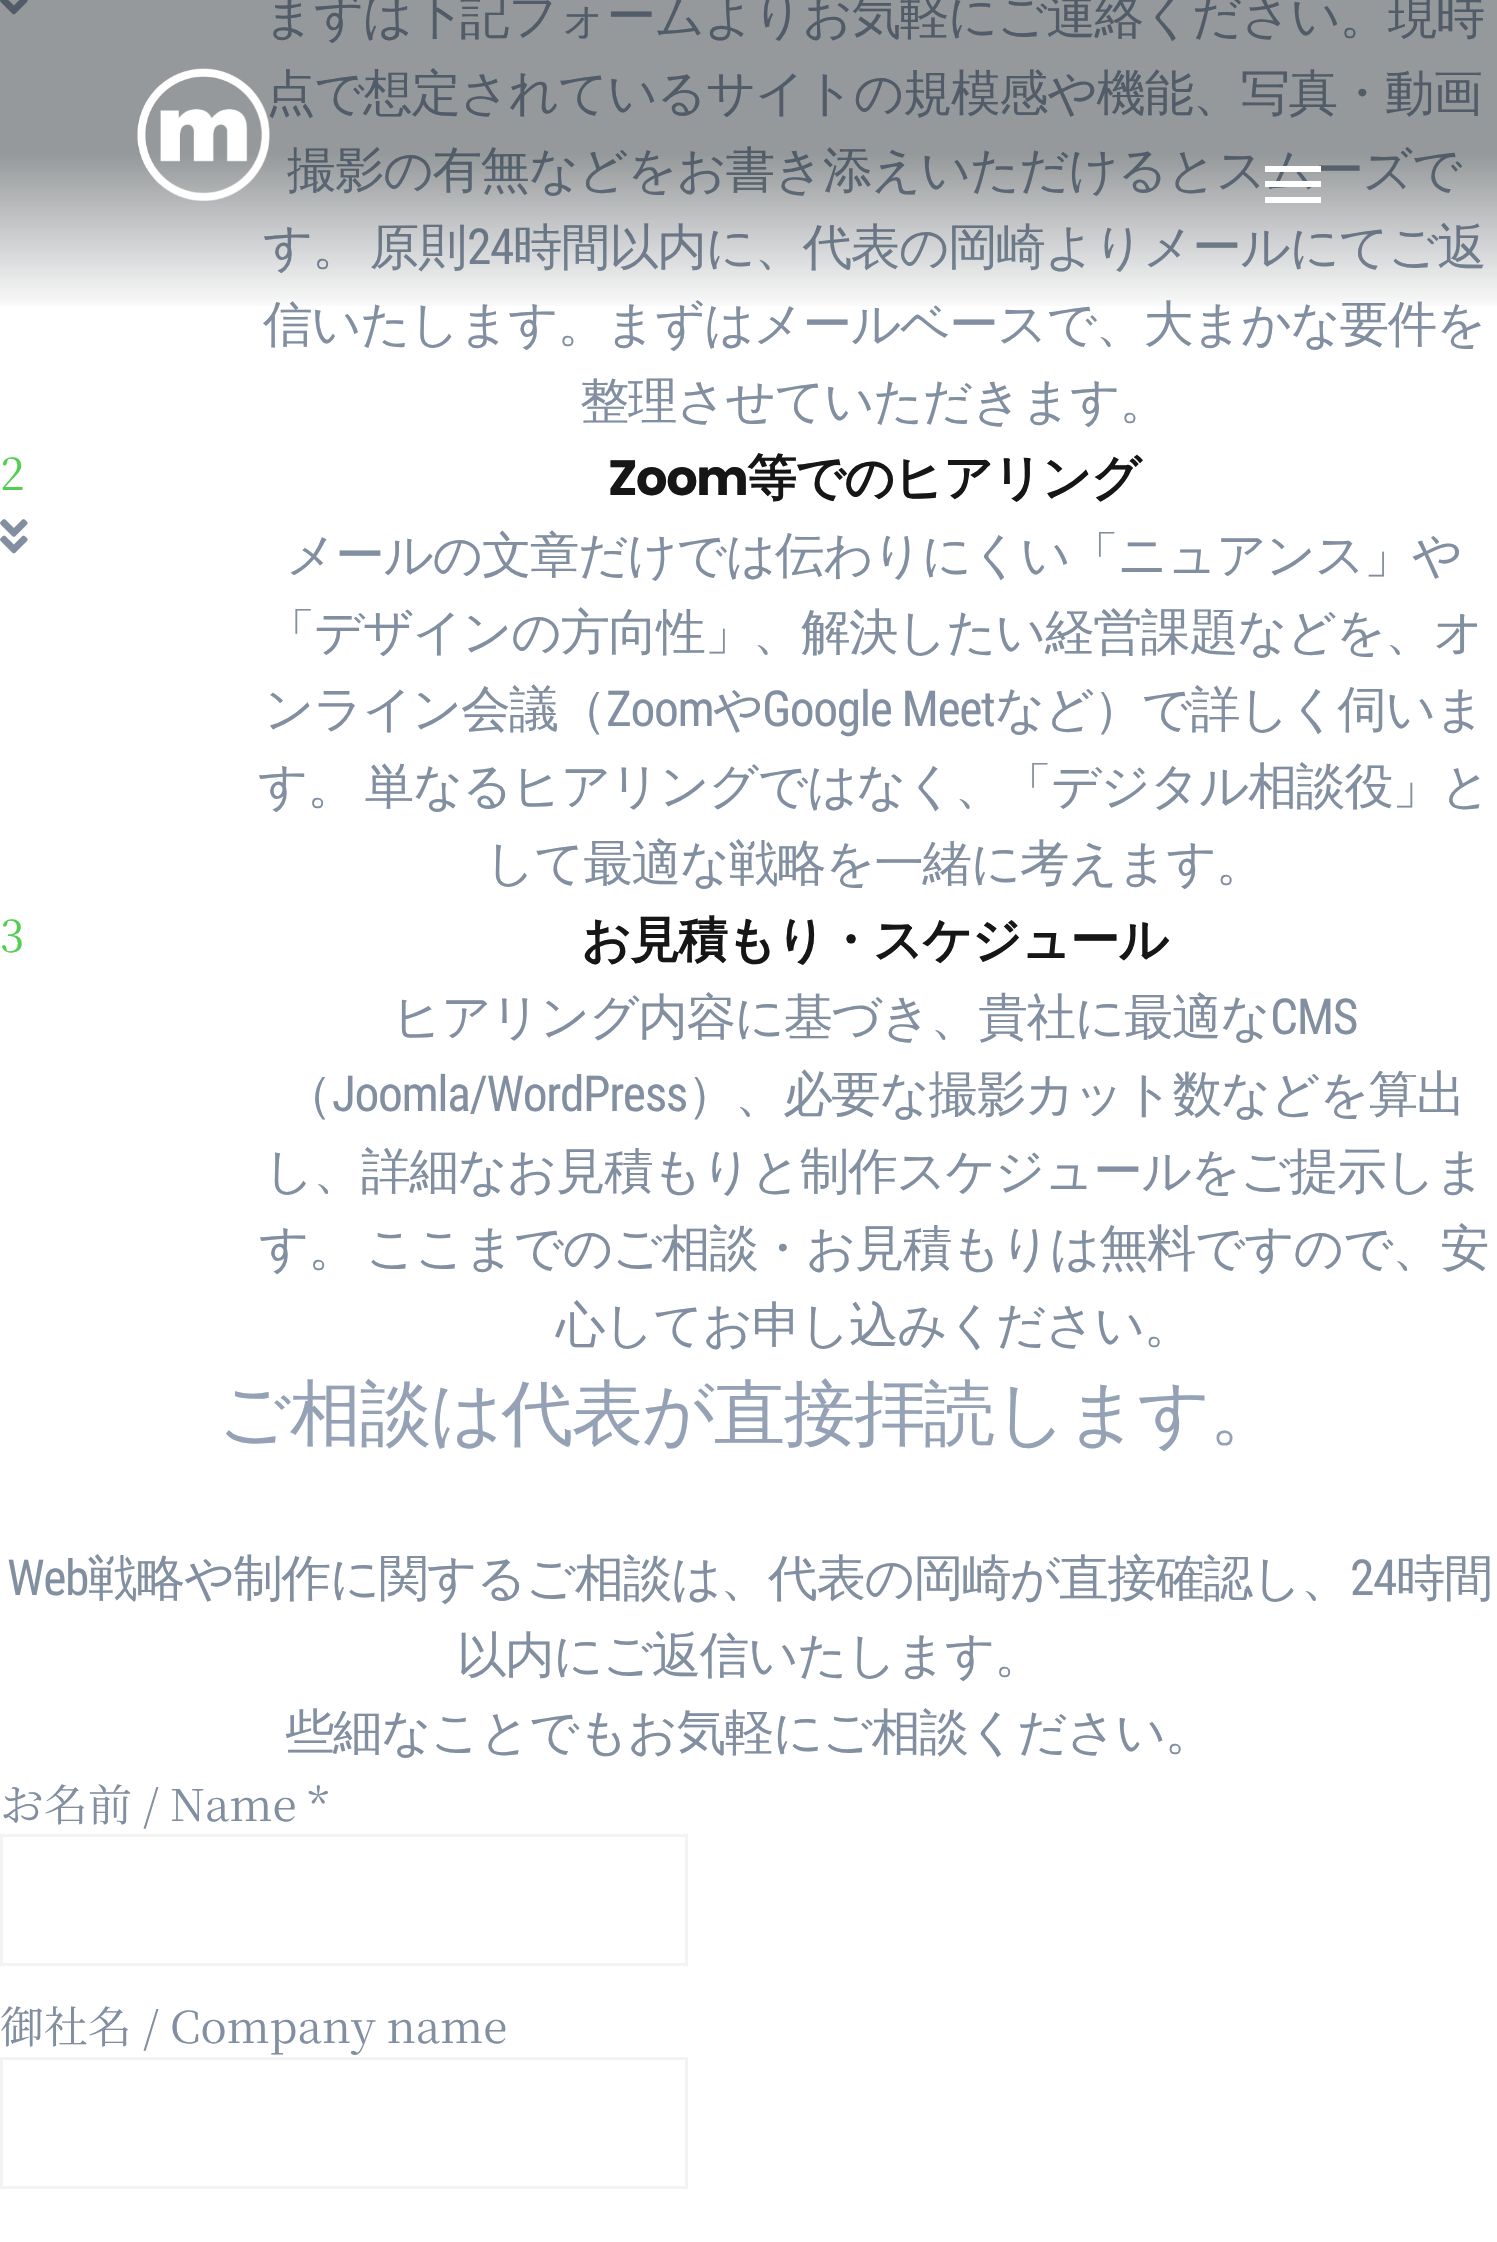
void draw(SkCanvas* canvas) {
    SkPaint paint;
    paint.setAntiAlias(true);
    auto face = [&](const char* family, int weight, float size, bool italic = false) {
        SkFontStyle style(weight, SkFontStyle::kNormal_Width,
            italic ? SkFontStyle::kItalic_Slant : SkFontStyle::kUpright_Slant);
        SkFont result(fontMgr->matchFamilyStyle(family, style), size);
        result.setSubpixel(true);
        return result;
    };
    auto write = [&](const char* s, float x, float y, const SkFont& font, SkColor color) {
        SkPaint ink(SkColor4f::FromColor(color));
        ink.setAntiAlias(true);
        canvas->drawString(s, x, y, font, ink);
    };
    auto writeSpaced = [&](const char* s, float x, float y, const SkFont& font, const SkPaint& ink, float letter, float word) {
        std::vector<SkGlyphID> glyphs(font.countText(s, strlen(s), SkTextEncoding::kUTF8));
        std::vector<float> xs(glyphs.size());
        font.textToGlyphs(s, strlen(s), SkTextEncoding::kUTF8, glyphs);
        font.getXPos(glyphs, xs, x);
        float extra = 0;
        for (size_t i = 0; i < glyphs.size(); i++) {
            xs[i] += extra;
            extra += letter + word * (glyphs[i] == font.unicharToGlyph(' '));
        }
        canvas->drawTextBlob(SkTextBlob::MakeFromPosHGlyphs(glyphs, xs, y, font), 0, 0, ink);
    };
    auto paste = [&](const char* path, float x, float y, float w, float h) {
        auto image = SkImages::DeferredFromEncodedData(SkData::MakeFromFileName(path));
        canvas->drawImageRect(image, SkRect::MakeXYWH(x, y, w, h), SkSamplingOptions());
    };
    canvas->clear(SK_ColorWHITE);
    paste("pic2.png", 0, 0, 28, 15);
    auto kFont1 = face("WenQuanYi Zen Hei", 500, 49.5f);
    paint.setColor(SkColorSetRGB(129, 143, 161));
    writeSpaced("まずは下記フォームよりお気軽にご連絡ください。現時", 264, 33, kFont1, paint, -1.4f, 0);
    writeSpaced("点で想定されているサイトの規模感や機能、写真・動画", 266, 110, kFont1, paint, -1.4f, 0);
    writeSpaced("撮影の有無などをお書き添えいただけるとスムーズで", 287, 187, kFont1, paint, -1.4f, 0);
    writeSpaced("す。 原則", 263, 264, kFont1, paint, -1.4f, -4);
    auto kFont2 = face("Roboto Condensed", 400, 49.5f);
    writeSpaced("24", 467, 264, kFont2, paint, -1.4f, 0);
    writeSpaced("時間以内に、代表の岡崎よりメールにてご返", 513, 264, kFont1, paint, -1.4f, 0);
    writeSpaced("信いたします。まずはメールベースで、大まかな要件を", 263, 341, kFont1, paint, -1.4f, 0);
    {
        const SkColor colors[] = {SkColorSetARGB(0, 22, 29, 33), SkColorSetARGB(115, 22, 29, 33)};
        const float stops[] = {0, 0.51f};
        const SkPoint ends[] = {{749, 314}, {749, 0}};
        paint.setShader(SkGradientShader::MakeLinear(ends, colors, stops, 2, SkTileMode::kClamp));
        paint.setAlpha(255);
    }
    canvas->drawRect(SkRect::MakeXYWH(0, 0, 1497, 306), paint);
    paste("pic1.png", 137, 68, 133, 133);
    paint.setShader(nullptr);
    paint.setColor(SK_ColorWHITE);
    canvas->drawPath(SkPathBuilder().moveTo(1265, 203).lineTo(1265, 197).lineTo(1321, 197).lineTo(1321, 203).close().moveTo(1265, 187).lineTo(1265, 181).lineTo(1321, 181).lineTo(1321, 187).close().moveTo(1265, 166).lineTo(1321, 166).lineTo(1321, 172).lineTo(1265, 172).close().detach(), paint);
    paint.setColor(SkColorSetRGB(129, 143, 161));
    writeSpaced("整理させていただきます。", 580, 418, kFont1, paint, -1.4f, 0);
    auto kFont3 = face("Noto Serif JP", 400, 44);
    write("2", 0, 490, kFont3, SkColorSetRGB(81, 207, 81));
    paste("pic3.png", 0, 519, 28, 35);
    auto kFont4 = face("Poppins", 700, 49.5f);
    paint.setColor(SkColorSetRGB(22, 22, 22));
    writeSpaced("Zoom", 608, 495, kFont4, paint, -1.4f, 0);
    auto kFont5 = face("WenQuanYi Zen Hei", 700, 49.5f);
    writeSpaced("等でのヒアリング", 747, 495, kFont5, paint, -1.4f, 0);
    paint.setColor(SkColorSetRGB(129, 143, 161));
    writeSpaced("メールの文章だけでは伝わりにくい「ニュアンス」や", 286, 572, kFont1, paint, -1.4f, 0);
    writeSpaced("「デザインの方向性」、解決したい経営課題などを、オ", 266, 649, kFont1, paint, -1.4f, 0);
    writeSpaced("ンライン会議（", 264, 726, kFont1, paint, -1.4f, 0);
    writeSpaced("Zoom", 606, 726, kFont2, paint, -1.4f, 0);
    writeSpaced("や", 713, 726, kFont1, paint, -1.4f, 0);
    writeSpaced("Google Meet", 762, 726, kFont2, paint, -1.4f, 0);
    writeSpaced("など）で詳しく伺いま", 995, 726, kFont1, paint, -1.4f, 0);
    writeSpaced("す。 単なるヒアリングではなく、「デジタル相談役」と", 258, 803, kFont1, paint, -1.4f, -4);
    writeSpaced("して最適な戦略を一緒に考えます。", 485, 880, kFont1, paint, -1.4f, 0);
    write("3", 0, 952, kFont3, SkColorSetRGB(81, 207, 81));
    paint.setColor(SkColorSetRGB(22, 22, 22));
    writeSpaced("お見積もり・スケジュール", 581, 957, kFont5, paint, -1.4f, 0);
    paint.setColor(SkColorSetRGB(129, 143, 161));
    writeSpaced("ヒアリング内容に基づき、貴社に最適な", 392, 1034, kFont1, paint, -1.4f, 0);
    writeSpaced("CMS", 1270, 1034, kFont2, paint, -1.4f, 0);
    writeSpaced("（", 283, 1111, kFont1, paint, -1.4f, 0);
    writeSpaced("Joomla/WordPress", 332, 1111, kFont2, paint, -1.4f, 0);
    writeSpaced("）、必要な撮影カット数などを算出", 687, 1111, kFont1, paint, -1.4f, 0);
    writeSpaced("し、詳細なお見積もりと制作スケジュールをご提示しま", 264, 1188, kFont1, paint, -1.4f, 0);
    writeSpaced("す。 ここまでのご相談・お見積もりは無料ですので、安", 259, 1265, kFont1, paint, -1.4f, -4);
    writeSpaced("心してお申し込みください。", 556, 1342, kFont1, paint, -1.4f, 0);
    auto kFont6 = face("WenQuanYi Zen Hei", 500, 71.5f);
    paint.setColor(SkColorSetRGB(149, 162, 181));
    writeSpaced("ご相談は代表が直接拝読します。", 218, 1438, kFont6, paint, -1.4f, 0);
    paint.setColor(SkColorSetRGB(129, 143, 161));
    writeSpaced("Web", 7, 1595, kFont2, paint, -1.4f, 0);
    writeSpaced("戦略や制作に関するご相談は、代表の岡崎が直接確認し、", 88, 1595, kFont1, paint, -1.4f, 0);
    writeSpaced("24", 1350, 1595, kFont2, paint, -1.4f, 0);
    writeSpaced("時間", 1396, 1595, kFont1, paint, -1.4f, 0);
    writeSpaced("以内にご返信いたします。", 457, 1672, kFont1, paint, -1.4f, 0);
    writeSpaced("些細なことでもお気軽にご相談ください。", 285, 1749, kFont1, paint, -1.4f, 0);
    write("お名前 / Name *", 0, 1821, kFont3, SkColorSetRGB(129, 143, 161));
    paint.setStyle(SkPaint::kStroke_Style);
    paint.setStrokeWidth(3);
    paint.setColor(SkColorSetRGB(243, 243, 243));
    canvas->drawRect(SkRect::MakeXYWH(1.5f, 1835.5f, 685, 129), paint);
    write("御社名 / Company name", 0, 2043, kFont3, SkColorSetRGB(129, 143, 161));
    canvas->drawRect(SkRect::MakeXYWH(1.5f, 2058.5f, 685, 129), paint);
}
